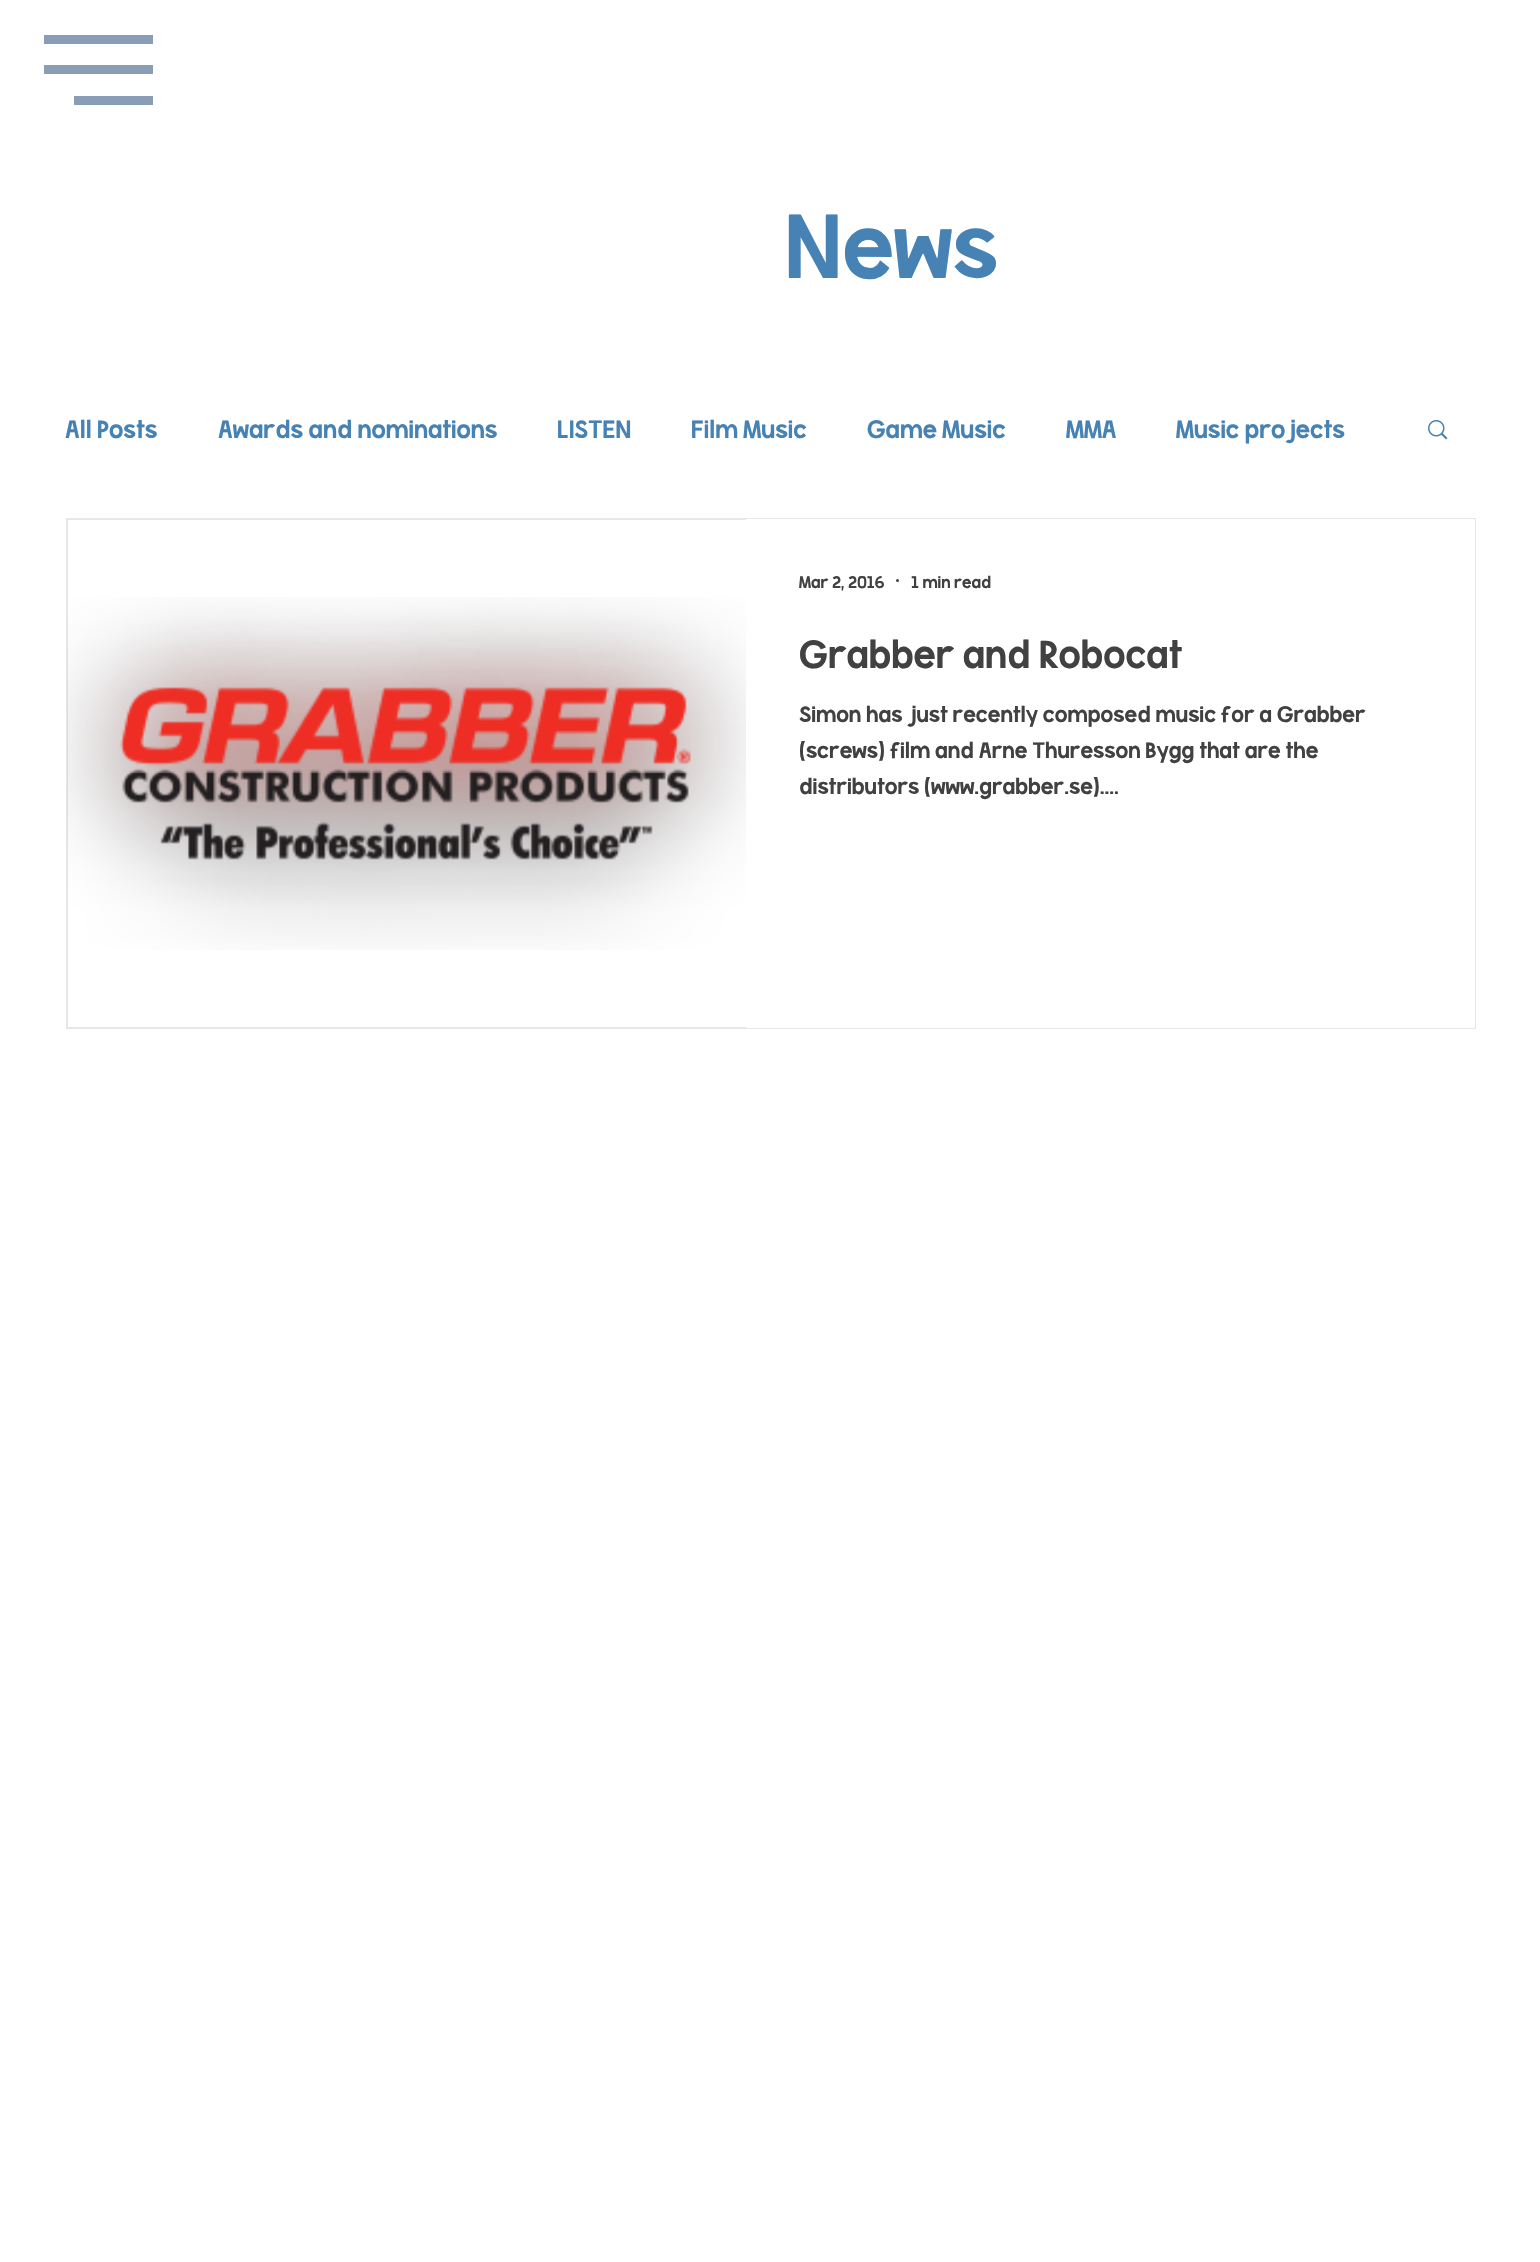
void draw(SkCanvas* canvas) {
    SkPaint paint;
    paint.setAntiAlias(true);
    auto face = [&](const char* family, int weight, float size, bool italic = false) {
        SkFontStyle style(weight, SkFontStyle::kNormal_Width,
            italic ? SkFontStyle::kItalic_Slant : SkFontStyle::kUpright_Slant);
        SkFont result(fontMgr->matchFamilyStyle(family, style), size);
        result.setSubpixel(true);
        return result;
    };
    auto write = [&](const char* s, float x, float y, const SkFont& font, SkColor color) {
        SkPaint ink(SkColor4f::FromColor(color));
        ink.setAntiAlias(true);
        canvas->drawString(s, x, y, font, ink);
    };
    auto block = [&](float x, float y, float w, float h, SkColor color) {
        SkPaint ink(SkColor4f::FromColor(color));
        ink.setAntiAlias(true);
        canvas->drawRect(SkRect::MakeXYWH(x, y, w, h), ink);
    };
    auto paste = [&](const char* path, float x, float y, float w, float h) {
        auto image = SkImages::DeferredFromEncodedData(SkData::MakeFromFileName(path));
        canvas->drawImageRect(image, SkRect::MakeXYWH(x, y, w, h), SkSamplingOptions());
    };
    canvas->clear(SK_ColorWHITE);
    block(44, 35, 109, 9, SkColorSetRGB(137, 158, 182));
    block(44, 65, 109, 9, SkColorSetRGB(137, 158, 182));
    block(74, 96, 79, 9, SkColorSetRGB(137, 158, 182));
    auto kFont1 = face("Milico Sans", 400, 97.5f);
    write("News", 784, 278, kFont1, SkColorSetRGB(70, 130, 180));
    auto kFont2 = face("Milico Sans", 400, 27);
    write("All Posts", 65, 438, kFont2, SkColorSetRGB(70, 130, 180));
    write("Awards and nominations", 218, 438, kFont2, SkColorSetRGB(70, 130, 180));
    write("LISTEN", 557, 438, kFont2, SkColorSetRGB(70, 130, 180));
    write("Film Music", 691, 438, kFont2, SkColorSetRGB(70, 130, 180));
    write("Game Music", 867, 438, kFont2, SkColorSetRGB(70, 130, 180));
    write("MMA", 1066, 438, kFont2, SkColorSetRGB(70, 130, 180));
    write("Music projects", 1176, 438, kFont2, SkColorSetRGB(70, 130, 180));
    paste("pic1.png", 1428, 420, 20, 20);
    paint.setStyle(SkPaint::kStroke_Style);
    paint.setStrokeWidth(2);
    paint.setColor(SkColorSetRGB(232, 230, 230));
    canvas->drawRect(SkRect::MakeXYWH(67, 519, 1408, 509), paint);
    paste("pic2.png", 67, 597, 679, 353);
    paste("pic3.png", 120, 687, 571, 173);
    block(746, 519, 729, 509, SK_ColorWHITE);
    auto kFont3 = face("Milico Sans", 400, 18);
    write("Mar 2, 2016", 799, 588, kFont3, SkColorSetRGB(65, 65, 65));
    paint.setStyle(SkPaint::kFill_Style);
    paint.setColor(SkColorSetRGB(65, 65, 65));
    canvas->drawCircle(897.5f, 580.5f, 1.5f, paint);
    write("1 min read", 911, 588, kFont3, SkColorSetRGB(65, 65, 65));
    canvas->save();
    canvas->clipRect(SkRect::MakeXYWH(800, 626, 621, 51));
    auto kFont4 = face("Milico Sans", 400, 42);
    write("Grabber and Robocat", 799, 668, kFont4, SkColorSetRGB(65, 65, 65));
    canvas->restore();
    auto kFont5 = face("Milico Sans", 400, 24);
    write("Simon has just recently composed music for a Grabber", 799, 722, kFont5, SkColorSetRGB(65, 65, 65));
    canvas->save();
    canvas->clipRect(SkRect::MakeXYWH(800, 695, 621, 108));
    write("(screws) film and Arne Thuresson Bygg that are the", 799, 758, kFont5, SkColorSetRGB(65, 65, 65));
    canvas->restore();
    write("distributors (www.grabber.se)....", 799, 794, kFont5, SkColorSetRGB(65, 65, 65));
}
